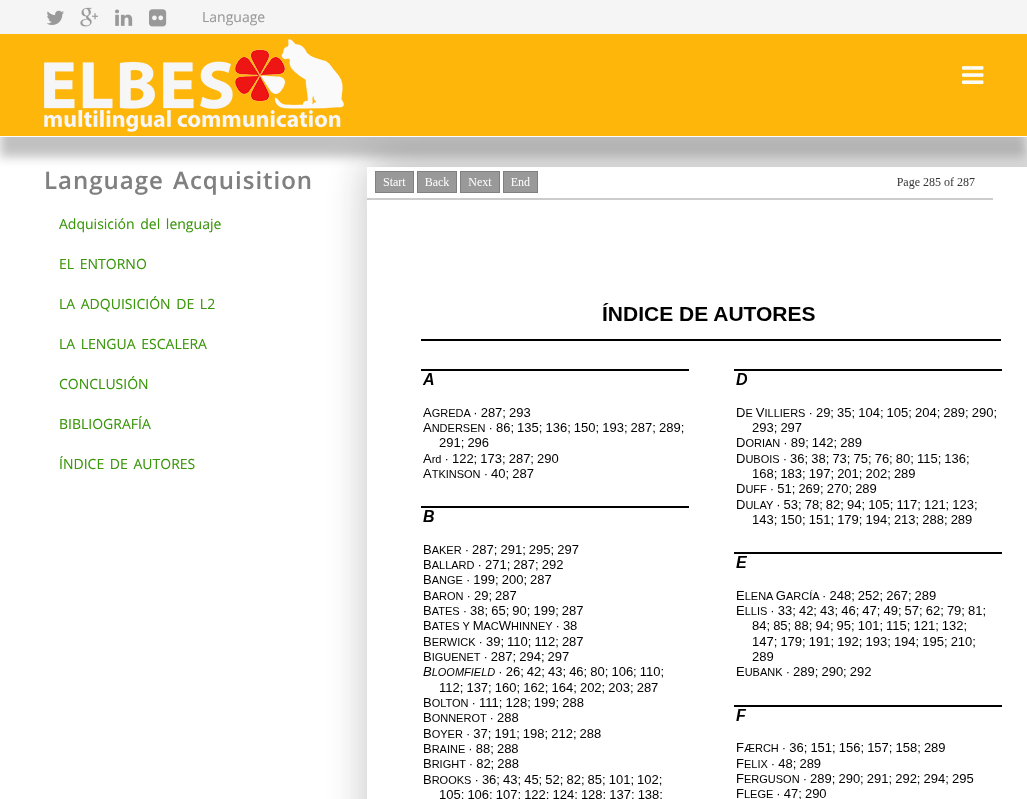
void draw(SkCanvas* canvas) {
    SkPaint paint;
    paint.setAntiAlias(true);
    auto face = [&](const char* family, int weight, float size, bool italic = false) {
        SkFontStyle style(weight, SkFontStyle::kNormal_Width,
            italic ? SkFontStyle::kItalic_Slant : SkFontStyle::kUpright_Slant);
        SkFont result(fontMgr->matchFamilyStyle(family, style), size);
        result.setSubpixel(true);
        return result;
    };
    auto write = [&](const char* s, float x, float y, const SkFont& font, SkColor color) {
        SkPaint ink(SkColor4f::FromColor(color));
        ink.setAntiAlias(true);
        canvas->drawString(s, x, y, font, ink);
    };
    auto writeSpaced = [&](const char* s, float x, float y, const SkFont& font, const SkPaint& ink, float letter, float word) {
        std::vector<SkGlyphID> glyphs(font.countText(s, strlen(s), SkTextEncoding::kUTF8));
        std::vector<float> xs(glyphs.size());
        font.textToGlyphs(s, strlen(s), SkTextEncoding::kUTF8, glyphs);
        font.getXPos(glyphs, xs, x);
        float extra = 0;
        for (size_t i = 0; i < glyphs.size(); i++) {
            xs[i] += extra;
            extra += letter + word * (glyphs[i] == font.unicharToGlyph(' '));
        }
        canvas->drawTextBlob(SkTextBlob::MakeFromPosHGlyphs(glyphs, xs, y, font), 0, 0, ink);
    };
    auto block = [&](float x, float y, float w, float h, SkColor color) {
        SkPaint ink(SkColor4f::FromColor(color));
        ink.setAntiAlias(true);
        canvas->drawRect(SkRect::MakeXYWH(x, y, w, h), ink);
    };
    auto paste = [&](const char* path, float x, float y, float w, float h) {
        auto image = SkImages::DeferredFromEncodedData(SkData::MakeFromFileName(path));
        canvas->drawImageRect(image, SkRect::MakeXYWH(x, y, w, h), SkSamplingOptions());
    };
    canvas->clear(SK_ColorWHITE);
    block(0, 0, 1027, 34, SkColorSetRGB(245, 245, 245));
    paste("pic1.png", 46, 10, 18, 15);
    paste("pic2.png", 80, 7, 18, 20);
    paste("pic3.png", 115, 9, 18, 17);
    paste("pic4.png", 149, 9, 18, 18);
    auto kFont1 = face("Open Sans", 400, 14);
    write("Language", 202, 22, kFont1, SkColorSetRGB(153, 153, 153));
    canvas->save();
    canvas->clipPath(SkPathBuilder(SkPathFillType::kEvenOdd).moveTo(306, 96).lineTo(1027, 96).lineTo(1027, 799).lineTo(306, 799).close().moveTo(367, 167).lineTo(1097, 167).cubicTo(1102.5f, 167, 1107, 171.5f, 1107, 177).lineTo(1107, 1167).cubicTo(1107, 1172.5f, 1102.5f, 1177, 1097, 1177).lineTo(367, 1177).close().detach(), true);
    paint.setColor(SkColorSetARGB(69, 25, 26, 25));
    paint.setMaskFilter(SkMaskFilter::MakeBlur(kNormal_SkBlurStyle, 20));
    canvas->drawRoundRect(SkRect::MakeXYWH(367, 157, 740, 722), 20, 20, paint);
    paint.setMaskFilter(nullptr);
    canvas->restore();
    paste("pic7.png", 367, 171, 635, 628);
    paint.setMaskFilter(SkMaskFilter::MakeBlur(kNormal_SkBlurStyle, 5));
    canvas->drawRect(SkRect::MakeXYWH(0, 54, 1027, 103), paint);
    paint.setMaskFilter(nullptr);
    block(0, 34, 1027, 102, SkColorSetRGB(254, 182, 11));
    block(0, 136, 1027, 1, SK_ColorWHITE);
    paste("pic5.png", 44, 39, 300, 93);
    paste("pic6.png", 962, 66, 22, 18);
    auto kFont2 = face("Open Sans", 600, 24);
    paint.setColor(SkColorSetRGB(128, 128, 128));
    writeSpaced("Language Acquisition", 44, 189, kFont2, paint, 1, 2);
    paint.setColor(SkColorSetRGB(58, 150, 10));
    writeSpaced("Adquisición del lenguaje", 59, 229, kFont1, paint, 0, 2);
    writeSpaced("EL ENTORNO", 59, 269, kFont1, paint, 0, 2);
    writeSpaced("LA ADQUISICIÓN DE L2", 59, 309, kFont1, paint, 0, 2);
    writeSpaced("LA LENGUA ESCALERA", 59, 349, kFont1, paint, 0, 2);
    write("CONCLUSIÓN", 59, 389, kFont1, SkColorSetRGB(58, 150, 10));
    write("BIBLIOGRAFÍA", 59, 429, kFont1, SkColorSetRGB(58, 150, 10));
    writeSpaced("ÍNDICE DE AUTORES", 59, 469, kFont1, paint, 0, 2);
}
